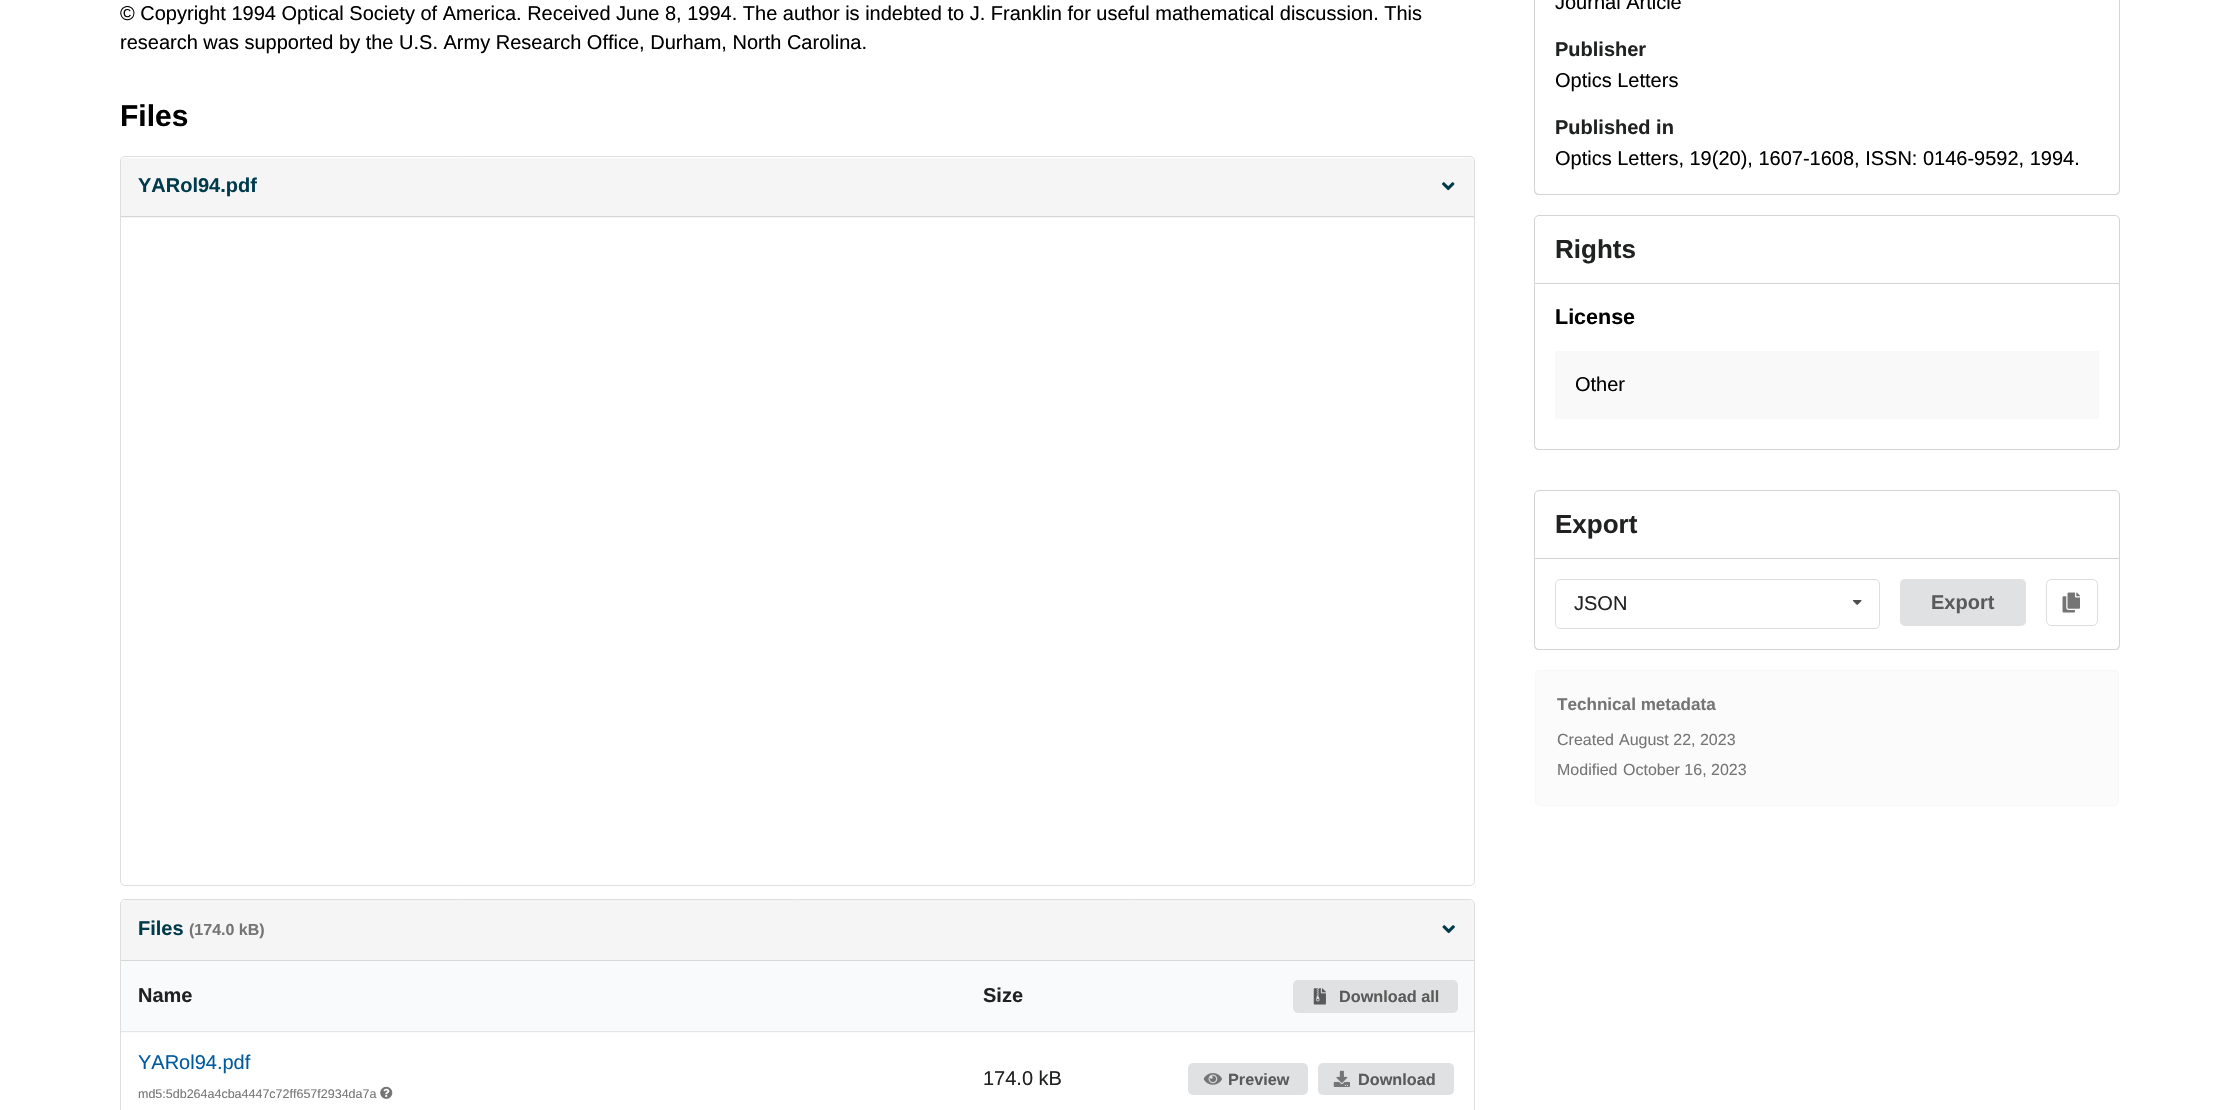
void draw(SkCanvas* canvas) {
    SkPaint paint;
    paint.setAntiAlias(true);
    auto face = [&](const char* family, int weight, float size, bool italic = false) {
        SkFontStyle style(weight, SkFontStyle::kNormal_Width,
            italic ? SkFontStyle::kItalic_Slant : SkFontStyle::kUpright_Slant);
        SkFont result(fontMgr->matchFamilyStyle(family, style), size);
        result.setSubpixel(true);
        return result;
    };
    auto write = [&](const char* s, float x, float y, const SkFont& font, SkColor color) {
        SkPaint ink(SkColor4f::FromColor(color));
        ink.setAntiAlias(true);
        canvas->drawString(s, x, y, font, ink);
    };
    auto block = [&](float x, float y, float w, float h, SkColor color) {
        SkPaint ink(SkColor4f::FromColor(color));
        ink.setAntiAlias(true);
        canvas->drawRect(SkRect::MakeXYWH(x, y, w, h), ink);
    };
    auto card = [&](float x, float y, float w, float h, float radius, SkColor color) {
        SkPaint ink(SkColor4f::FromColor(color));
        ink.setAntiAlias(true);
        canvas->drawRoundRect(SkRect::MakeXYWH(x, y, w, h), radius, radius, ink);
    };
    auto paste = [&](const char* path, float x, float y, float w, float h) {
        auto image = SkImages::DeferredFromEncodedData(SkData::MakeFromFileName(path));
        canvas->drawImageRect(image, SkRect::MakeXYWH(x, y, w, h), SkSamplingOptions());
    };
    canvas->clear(SK_ColorWHITE);
    auto kFont1 = face("Liberation Sans", 400, 20);
    write("© Copyright 1994 Optical Society of America. Received June 8, 1994. The author is indebted to J. Franklin for useful mathematical discussion. This", 120, 20, kFont1, SK_ColorBLACK);
    write("research was supported by the U.S. Army Research Office, Durham, North Carolina.", 120, 49, kFont1, SK_ColorBLACK);
    auto kFont2 = face("Liberation Sans", 700, 30);
    write("Files", 120, 126, kFont2, SK_ColorBLACK);
    paint.setStyle(SkPaint::kStroke_Style);
    paint.setStrokeWidth(1);
    paint.setColor(SkColorSetRGB(222, 222, 222));
    canvas->drawRoundRect(SkRect::MakeXYWH(120.5f, 156.5f, 1354, 729), 4.5f, 4.5f, paint);
    paint.setStyle(SkPaint::kFill_Style);
    paint.setColor(SkColorSetRGB(245, 245, 245));
    canvas->drawPath(SkPathBuilder().moveTo(126, 158).lineTo(1469, 158).cubicTo(1472, 158, 1474, 160, 1474, 163).lineTo(1474, 218).lineTo(121, 218).lineTo(121, 163).cubicTo(121, 160, 123, 158, 126, 158).close().detach(), paint);
    block(121, 216, 1353, 1, SkColorSetRGB(213, 214, 214));
    auto kFont3 = face("Liberation Sans", 700, 20);
    write("YARol94.pdf", 138, 192, kFont3, SkColorSetRGB(0, 59, 76));
    paste("pic1.png", 1442, 182, 13, 9);
    paint.setStyle(SkPaint::kStroke_Style);
    paint.setColor(SkColorSetRGB(222, 222, 222));
    canvas->drawRoundRect(SkRect::MakeXYWH(120.5f, 899.5f, 1354, 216), 4.5f, 4.5f, paint);
    paint.setStyle(SkPaint::kFill_Style);
    paint.setColor(SkColorSetRGB(245, 245, 245));
    canvas->drawPath(SkPathBuilder().moveTo(126, 900).lineTo(1469, 900).cubicTo(1472, 900, 1474, 902, 1474, 905).lineTo(1474, 961).lineTo(121, 961).lineTo(121, 905).cubicTo(121, 902, 123, 900, 126, 900).close().detach(), paint);
    block(121, 960, 1353, 1, SkColorSetRGB(213, 214, 214));
    write("Files", 138, 935, kFont3, SkColorSetRGB(0, 59, 76));
    auto kFont4 = face("Liberation Sans", 700, 16);
    write("(174.0 kB)", 189, 935, kFont4, SkColorSetRGB(117, 117, 117));
    paste("pic2.png", 1442, 925, 13, 9);
    block(121, 961, 1353, 72, SkColorSetRGB(249, 250, 251));
    block(121, 1031, 1353, 1, SkColorSetRGB(227, 229, 230));
    write("Name", 138, 1002, kFont3, SkColorSetRGB(32, 33, 33));
    write("Size", 983, 1002, kFont3, SkColorSetRGB(32, 33, 33));
    card(1293, 980, 165, 33, 5, SkColorSetRGB(224, 225, 226));
    paste("pic3.png", 1313, 988, 13, 17);
    auto kFont5 = face("Liberation Sans", 700, 16.25f);
    write("Download all", 1339, 1002, kFont5, SkColorSetRGB(90, 90, 90));
    write("YARol94.pdf", 138, 1069, kFont1, SkColorSetRGB(0, 91, 158));
    auto kFont6 = face("Liberation Sans", 400, 12.5f);
    write("md5:5db264a4cba4447c72ff657f2934da7a", 138, 1098, kFont6, SkColorSetRGB(117, 117, 117));
    paste("pic4.png", 380, 1086, 13, 13);
    write("174.0 kB", 983, 1085, kFont1, SkColorSetRGB(32, 33, 33));
    card(1188, 1063, 120, 32, 5, SkColorSetRGB(224, 225, 226));
    paste("pic5.png", 1203, 1073, 19, 12);
    write("Preview", 1228, 1085, kFont5, SkColorSetRGB(90, 90, 90));
    card(1318, 1063, 136, 32, 5, SkColorSetRGB(224, 225, 226));
    paste("pic6.png", 1333, 1070, 17, 17);
    write("Download", 1358, 1085, kFont5, SkColorSetRGB(90, 90, 90));
    paint.setColor(SkColorSetRGB(212, 212, 213));
    canvas->drawPath(SkPathBuilder(SkPathFillType::kEvenOdd).moveTo(1534, -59).lineTo(2120, -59).lineTo(2120, 190).cubicTo(2120, 193, 2118, 195, 2115, 195).lineTo(1539, 195).cubicTo(1536, 195, 1534, 193, 1534, 190).close().moveTo(1535, -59).lineTo(2119, -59).lineTo(2119, 190).cubicTo(2119, 192, 2117, 194, 2115, 194).lineTo(1539, 194).cubicTo(1537, 194, 1535, 192, 1535, 190).close().detach(), paint);
    write("Journal Article", 1555, 9, kFont1, SK_ColorBLACK);
    write("Publisher", 1555, 56, kFont3, SkColorSetRGB(32, 33, 33));
    write("Optics Letters", 1555, 87, kFont1, SK_ColorBLACK);
    write("Published in", 1555, 134, kFont3, SkColorSetRGB(32, 33, 33));
    write("Optics Letters, 19(20), 1607-1608, ISSN: 0146-9592, 1994.", 1555, 165, kFont1, SK_ColorBLACK);
    paint.setStyle(SkPaint::kStroke_Style);
    canvas->drawPath(SkPathBuilder().moveTo(1539, 215.5f).lineTo(2115, 215.5f).cubicTo(2117.5f, 215.5f, 2119.5f, 217.5f, 2119.5f, 220).lineTo(2119.5f, 283.5f).lineTo(1534.5f, 283.5f).lineTo(1534.5f, 220).cubicTo(1534.5f, 217.5f, 1536.5f, 215.5f, 1539, 215.5f).close().detach(), paint);
    auto kFont7 = face("Liberation Sans", 700, 26);
    write("Rights", 1555, 258, kFont7, SkColorSetRGB(32, 33, 33));
    paint.setStyle(SkPaint::kFill_Style);
    canvas->drawPath(SkPathBuilder(SkPathFillType::kEvenOdd).moveTo(1534, 284).lineTo(2120, 284).lineTo(2120, 445).cubicTo(2120, 448, 2118, 450, 2115, 450).lineTo(1539, 450).cubicTo(1536, 450, 1534, 448, 1534, 445).close().moveTo(1535, 284).lineTo(2119, 284).lineTo(2119, 445).cubicTo(2119, 447, 2117, 449, 2115, 449).lineTo(1539, 449).cubicTo(1537, 449, 1535, 447, 1535, 445).close().detach(), paint);
    auto kFont8 = face("Liberation Sans", 700, 21.5f);
    write("License", 1555, 324, kFont8, SK_ColorBLACK);
    block(1555, 351, 544, 68, SkColorSetRGB(249, 249, 249));
    write("Other", 1575, 391, kFont1, SK_ColorBLACK);
    paint.setStyle(SkPaint::kStroke_Style);
    canvas->drawPath(SkPathBuilder().moveTo(1539, 490.5f).lineTo(2115, 490.5f).cubicTo(2117.5f, 490.5f, 2119.5f, 492.5f, 2119.5f, 495).lineTo(2119.5f, 558.5f).lineTo(1534.5f, 558.5f).lineTo(1534.5f, 495).cubicTo(1534.5f, 492.5f, 1536.5f, 490.5f, 1539, 490.5f).close().detach(), paint);
    write("Export", 1555, 533, kFont7, SkColorSetRGB(32, 33, 33));
    paint.setStyle(SkPaint::kFill_Style);
    canvas->drawPath(SkPathBuilder(SkPathFillType::kEvenOdd).moveTo(1534, 559).lineTo(2120, 559).lineTo(2120, 645).cubicTo(2120, 648, 2118, 650, 2115, 650).lineTo(1539, 650).cubicTo(1536, 650, 1534, 648, 1534, 645).close().moveTo(1535, 559).lineTo(2119, 559).lineTo(2119, 645).cubicTo(2119, 647, 2117, 649, 2115, 649).lineTo(1539, 649).cubicTo(1537, 649, 1535, 647, 1535, 645).close().detach(), paint);
    paint.setStyle(SkPaint::kStroke_Style);
    paint.setColor(SkColorSetRGB(222, 222, 222));
    canvas->drawRoundRect(SkRect::MakeXYWH(1555.5f, 579.5f, 324, 49), 4.5f, 4.5f, paint);
    write("JSON", 1574, 610, kFont1, SkColorSetRGB(32, 33, 33));
    paste("pic7.png", 1852, 600, 10, 5);
    card(1900, 579, 126, 47, 5, SkColorSetRGB(224, 225, 226));
    write("Export", 1931, 609, kFont3, SkColorSetRGB(90, 90, 90));
    canvas->drawRoundRect(SkRect::MakeXYWH(2046.5f, 579.5f, 51, 46), 4.5f, 4.5f, paint);
    paste("pic8.png", 2062, 592, 18, 21);
    paint.setStyle(SkPaint::kFill_Style);
    paint.setColor(SkColorSetRGB(251, 251, 251));
    canvas->drawRoundRect(SkRect::MakeXYWH(1535.5f, 670.5f, 583, 135), 4.5f, 4.5f, paint);
    paint.setStyle(SkPaint::kStroke_Style);
    paint.setColor(SkColorSetRGB(247, 247, 248));
    canvas->drawRoundRect(SkRect::MakeXYWH(1535.5f, 670.5f, 583, 135), 4.5f, 4.5f, paint);
    auto kFont9 = face("Liberation Sans", 700, 17.1f);
    write("Technical metadata", 1557, 710, kFont9, SkColorSetRGB(117, 117, 117));
    auto kFont10 = face("Liberation Sans", 400, 16);
    write("Created", 1557, 745, kFont10, SkColorSetRGB(117, 117, 117));
    write("August 22, 2023", 1619, 745, kFont10, SkColorSetRGB(117, 117, 117));
    write("Modified", 1557, 775, kFont10, SkColorSetRGB(117, 117, 117));
    write("October 16, 2023", 1623, 775, kFont10, SkColorSetRGB(117, 117, 117));
}
